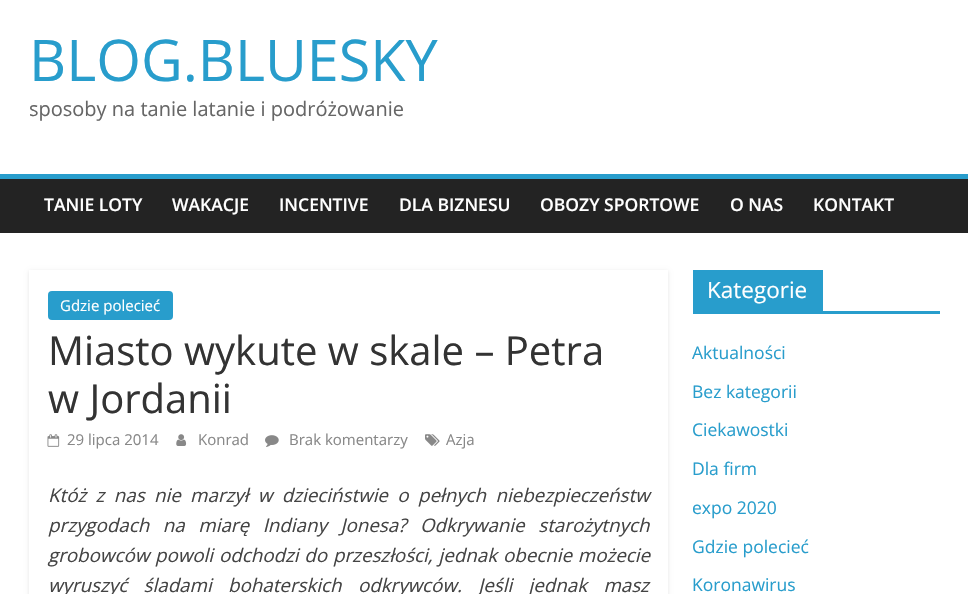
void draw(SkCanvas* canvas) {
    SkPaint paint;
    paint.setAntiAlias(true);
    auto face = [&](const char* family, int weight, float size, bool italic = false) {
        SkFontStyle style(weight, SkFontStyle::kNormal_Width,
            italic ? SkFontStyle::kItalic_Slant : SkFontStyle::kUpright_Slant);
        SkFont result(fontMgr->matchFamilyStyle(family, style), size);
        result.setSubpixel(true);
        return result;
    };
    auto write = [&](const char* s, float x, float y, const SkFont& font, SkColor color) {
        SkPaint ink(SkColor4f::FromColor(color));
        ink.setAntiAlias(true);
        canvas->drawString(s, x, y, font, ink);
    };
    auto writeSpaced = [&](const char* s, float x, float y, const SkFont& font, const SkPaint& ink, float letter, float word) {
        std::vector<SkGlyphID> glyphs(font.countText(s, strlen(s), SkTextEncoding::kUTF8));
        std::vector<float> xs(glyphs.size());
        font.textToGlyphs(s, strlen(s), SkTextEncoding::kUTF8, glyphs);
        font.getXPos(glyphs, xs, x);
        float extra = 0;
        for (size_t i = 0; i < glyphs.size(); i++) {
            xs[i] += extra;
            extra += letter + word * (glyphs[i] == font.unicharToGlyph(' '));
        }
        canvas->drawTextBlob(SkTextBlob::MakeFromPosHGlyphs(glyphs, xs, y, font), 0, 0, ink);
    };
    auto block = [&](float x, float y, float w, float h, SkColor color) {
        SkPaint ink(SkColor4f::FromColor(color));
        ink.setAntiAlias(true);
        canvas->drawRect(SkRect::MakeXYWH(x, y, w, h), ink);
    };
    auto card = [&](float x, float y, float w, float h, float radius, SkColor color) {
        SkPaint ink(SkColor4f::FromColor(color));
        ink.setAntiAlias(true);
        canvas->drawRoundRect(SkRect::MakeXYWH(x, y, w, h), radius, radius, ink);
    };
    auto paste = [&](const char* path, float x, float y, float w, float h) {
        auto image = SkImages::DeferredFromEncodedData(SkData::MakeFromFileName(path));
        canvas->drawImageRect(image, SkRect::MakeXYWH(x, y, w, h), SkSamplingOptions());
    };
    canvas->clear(SK_ColorWHITE);
    auto kFont1 = face("Open Sans", 400, 57.5f);
    write("BLOG.BLUESKY", 29, 81, kFont1, SkColorSetRGB(40, 157, 204));
    auto kFont2 = face("Open Sans", 400, 20);
    write("sposoby na tanie latanie i podróżowanie", 29, 116, kFont2, SkColorSetRGB(102, 102, 102));
    block(0, 179, 968, 54, SkColorSetRGB(35, 35, 35));
    block(0, 174, 968, 5, SkColorSetRGB(40, 157, 204));
    auto kFont3 = face("Open Sans", 600, 17.5f);
    write("TANIE LOTY", 44, 211, kFont3, SK_ColorWHITE);
    write("WAKACJE", 172, 211, kFont3, SK_ColorWHITE);
    write("INCENTIVE", 279, 211, kFont3, SK_ColorWHITE);
    write("DLA BIZNESU", 399, 211, kFont3, SK_ColorWHITE);
    write("OBOZY SPORTOWE", 540, 211, kFont3, SK_ColorWHITE);
    write("O NAS", 730, 211, kFont3, SK_ColorWHITE);
    write("KONTAKT", 813, 211, kFont3, SK_ColorWHITE);
    canvas->save();
    canvas->clipPath(SkPathBuilder(SkPathFillType::kEvenOdd).moveTo(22, 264).lineTo(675, 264).lineTo(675, 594).lineTo(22, 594).close().moveTo(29, 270).lineTo(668, 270).lineTo(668, 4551).lineTo(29, 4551).close().detach(), true);
    paint.setColor(SkColorSetARGB(26, 0, 0, 0));
    paint.setMaskFilter(SkMaskFilter::MakeBlur(kNormal_SkBlurStyle, 2));
    canvas->drawRect(SkRect::MakeXYWH(29, 271, 639, 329), paint);
    paint.setMaskFilter(nullptr);
    canvas->restore();
    card(48, 291, 125, 29, 4, SkColorSetRGB(40, 157, 204));
    auto kFont4 = face("Open Sans", 400, 15);
    write("Gdzie polecieć", 60, 311, kFont4, SK_ColorWHITE);
    auto kFont5 = face("Open Sans", 400, 40);
    write("Miasto wykute w skale – Petra", 48, 365, kFont5, SkColorSetRGB(51, 51, 51));
    write("w Jordanii", 48, 413, kFont5, SkColorSetRGB(51, 51, 51));
    paste("pic1.png", 47, 434, 13, 13);
    write("29 lipca 2014", 67, 445, kFont4, SkColorSetRGB(136, 136, 136));
    paste("pic2.png", 176, 434, 11, 12);
    write("Konrad", 198, 445, kFont4, SkColorSetRGB(136, 136, 136));
    paste("pic3.png", 265, 435, 14, 12);
    write("Brak komentarzy", 289, 445, kFont4, SkColorSetRGB(136, 136, 136));
    paste("pic4.png", 425, 434, 15, 12);
    write("Azja", 446, 445, kFont4, SkColorSetRGB(136, 136, 136));
    auto kFont6 = face("Open Sans", 400, 18.75f, true);
    paint.setColor(SkColorSetRGB(68, 68, 68));
    writeSpaced("Któż z nas nie marzył w dzieciństwie o pełnych niebezpieczeństw", 48, 502, kFont6, paint, 0, 4.5f);
    writeSpaced("przygodach na miarę Indiany Jonesa? Odkrywanie starożytnych", 48, 532, kFont6, paint, 0, 8.75f);
    writeSpaced("grobowców powoli odchodzi do przeszłości, jednak obecnie możecie", 48, 562, kFont6, paint, 0, 1);
    writeSpaced("wyruszyć śladami bohaterskich odkrywców. Jeśli jednak masz", 48, 592, kFont6, paint, 0, 11.5f);
    block(693, 311, 247, 3, SkColorSetRGB(40, 157, 204));
    block(693, 270, 130, 41, SkColorSetRGB(40, 157, 204));
    auto kFont7 = face("Open Sans", 400, 22.5f);
    write("Kategorie", 707, 298, kFont7, SK_ColorWHITE);
    auto kFont8 = face("Open Sans", 400, 17.5f);
    write("Aktualności", 692, 359, kFont8, SkColorSetRGB(40, 157, 204));
    write("Bez kategorii", 692, 398, kFont8, SkColorSetRGB(40, 157, 204));
    write("Ciekawostki", 692, 436, kFont8, SkColorSetRGB(40, 157, 204));
    write("Dla firm", 692, 475, kFont8, SkColorSetRGB(40, 157, 204));
    write("expo 2020", 692, 514, kFont8, SkColorSetRGB(40, 157, 204));
    write("Gdzie polecieć", 692, 553, kFont8, SkColorSetRGB(40, 157, 204));
    write("Koronawirus", 692, 591, kFont8, SkColorSetRGB(40, 157, 204));
}
